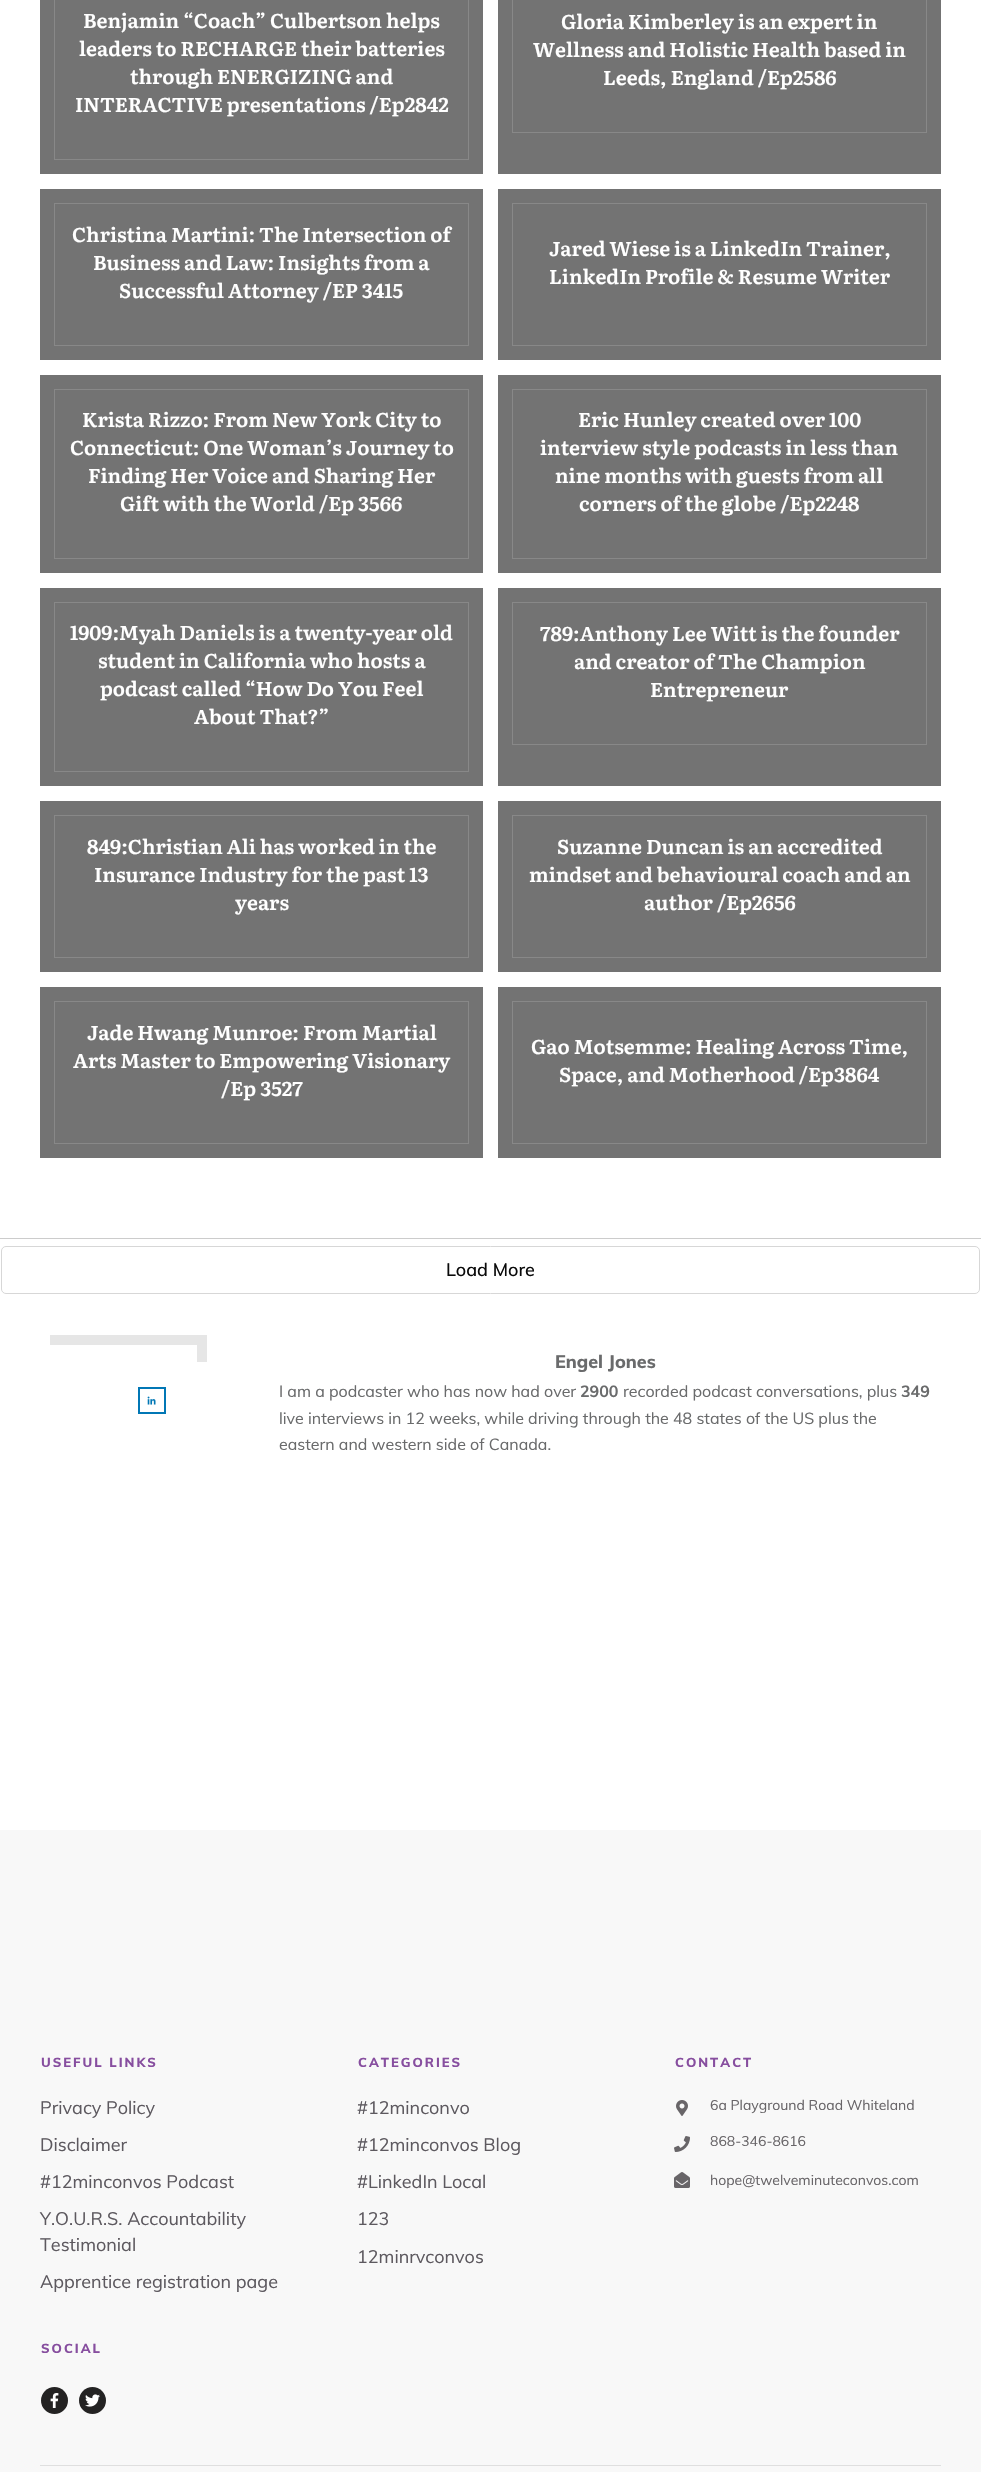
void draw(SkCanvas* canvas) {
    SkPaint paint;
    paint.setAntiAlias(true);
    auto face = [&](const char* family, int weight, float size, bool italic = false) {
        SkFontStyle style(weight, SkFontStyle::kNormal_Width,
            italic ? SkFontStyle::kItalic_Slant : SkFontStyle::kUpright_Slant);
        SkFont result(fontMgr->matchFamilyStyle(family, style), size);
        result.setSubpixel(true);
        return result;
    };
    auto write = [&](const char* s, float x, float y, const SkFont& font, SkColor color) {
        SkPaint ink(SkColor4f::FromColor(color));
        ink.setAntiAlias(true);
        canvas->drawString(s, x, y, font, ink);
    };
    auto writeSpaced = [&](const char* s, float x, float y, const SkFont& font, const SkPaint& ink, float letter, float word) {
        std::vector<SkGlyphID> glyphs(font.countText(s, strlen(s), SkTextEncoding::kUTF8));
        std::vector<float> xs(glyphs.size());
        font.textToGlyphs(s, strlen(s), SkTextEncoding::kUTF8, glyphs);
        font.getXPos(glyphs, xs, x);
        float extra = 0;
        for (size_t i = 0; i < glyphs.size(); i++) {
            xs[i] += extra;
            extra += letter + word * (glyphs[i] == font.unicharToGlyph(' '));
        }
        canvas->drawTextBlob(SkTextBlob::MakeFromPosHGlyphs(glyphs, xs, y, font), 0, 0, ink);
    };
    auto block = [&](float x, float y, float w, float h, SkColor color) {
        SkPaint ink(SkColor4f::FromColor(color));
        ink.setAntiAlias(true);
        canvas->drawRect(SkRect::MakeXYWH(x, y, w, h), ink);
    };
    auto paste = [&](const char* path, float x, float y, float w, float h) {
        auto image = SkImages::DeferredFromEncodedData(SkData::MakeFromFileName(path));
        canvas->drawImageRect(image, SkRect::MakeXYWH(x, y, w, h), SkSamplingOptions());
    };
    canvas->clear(SK_ColorWHITE);
    block(40, 0, 443, 174, SkColorSetRGB(115, 115, 115));
    paint.setStyle(SkPaint::kStroke_Style);
    paint.setStrokeWidth(1);
    paint.setColor(SkColorSetRGB(136, 136, 136));
    canvas->drawRect(SkRect::MakeXYWH(54.5f, -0.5f, 414, 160), paint);
    auto kFont1 = face("Literata", 600, 20);
    write("Benjamin “Coach” Culbertson helps", 83, 28, kFont1, SK_ColorWHITE);
    write("leaders to RECHARGE their batteries", 79, 56, kFont1, SK_ColorWHITE);
    write("through ENERGIZING and", 130, 84, kFont1, SK_ColorWHITE);
    write("INTERACTIVE presentations /Ep2842", 75, 112, kFont1, SK_ColorWHITE);
    block(498, 0, 443, 174, SkColorSetRGB(115, 115, 115));
    canvas->drawRect(SkRect::MakeXYWH(512.5f, -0.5f, 414, 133), paint);
    write("Gloria Kimberley is an expert in", 561, 29, kFont1, SK_ColorWHITE);
    write("Wellness and Holistic Health based in", 533, 57, kFont1, SK_ColorWHITE);
    write("Leeds, England /Ep2586", 603, 85, kFont1, SK_ColorWHITE);
    block(40, 189, 443, 171, SkColorSetRGB(115, 115, 115));
    canvas->drawRect(SkRect::MakeXYWH(54.5f, 203.5f, 414, 142), paint);
    write("Christina Martini: The Intersection of", 72, 242, kFont1, SK_ColorWHITE);
    write("Business and Law: Insights from a", 93, 270, kFont1, SK_ColorWHITE);
    write("Successful Attorney /EP 3415", 119, 298, kFont1, SK_ColorWHITE);
    block(498, 189, 443, 171, SkColorSetRGB(115, 115, 115));
    canvas->drawRect(SkRect::MakeXYWH(512.5f, 203.5f, 414, 142), paint);
    write("Jared Wiese is a LinkedIn Trainer,", 549, 256, kFont1, SK_ColorWHITE);
    write("LinkedIn Profile & Resume Writer", 549, 284, kFont1, SK_ColorWHITE);
    block(40, 375, 443, 198, SkColorSetRGB(115, 115, 115));
    canvas->drawRect(SkRect::MakeXYWH(54.5f, 389.5f, 414, 169), paint);
    write("Krista Rizzo: From New York City to", 82, 427, kFont1, SK_ColorWHITE);
    write("Connecticut: One Woman’s Journey to", 70, 455, kFont1, SK_ColorWHITE);
    write("Finding Her Voice and Sharing Her", 88, 483, kFont1, SK_ColorWHITE);
    write("Gift with the World /Ep 3566", 120, 511, kFont1, SK_ColorWHITE);
    block(498, 375, 443, 198, SkColorSetRGB(115, 115, 115));
    canvas->drawRect(SkRect::MakeXYWH(512.5f, 389.5f, 414, 169), paint);
    write("Eric Hunley created over 100", 578, 427, kFont1, SK_ColorWHITE);
    write("interview style podcasts in less than", 540, 455, kFont1, SK_ColorWHITE);
    write("nine months with guests from all", 555, 483, kFont1, SK_ColorWHITE);
    write("corners of the globe /Ep2248", 579, 511, kFont1, SK_ColorWHITE);
    block(40, 588, 443, 198, SkColorSetRGB(115, 115, 115));
    canvas->drawRect(SkRect::MakeXYWH(54.5f, 602.5f, 414, 169), paint);
    write("1909:Myah Daniels is a twenty-year old", 70, 640, kFont1, SK_ColorWHITE);
    write("student in California who hosts a", 98, 668, kFont1, SK_ColorWHITE);
    write("podcast called “How Do You Feel", 100, 696, kFont1, SK_ColorWHITE);
    write("About That?”", 194, 724, kFont1, SK_ColorWHITE);
    block(498, 588, 443, 198, SkColorSetRGB(115, 115, 115));
    canvas->drawRect(SkRect::MakeXYWH(512.5f, 602.5f, 414, 142), paint);
    write("789:Anthony Lee Witt is the founder", 540, 641, kFont1, SK_ColorWHITE);
    write("and creator of The Champion", 574, 669, kFont1, SK_ColorWHITE);
    write("Entrepreneur", 650, 697, kFont1, SK_ColorWHITE);
    block(40, 801, 443, 171, SkColorSetRGB(115, 115, 115));
    canvas->drawRect(SkRect::MakeXYWH(54.5f, 815.5f, 414, 142), paint);
    write("849:Christian Ali has worked in the", 87, 854, kFont1, SK_ColorWHITE);
    write("Insurance Industry for the past 13", 94, 882, kFont1, SK_ColorWHITE);
    write("years", 235, 910, kFont1, SK_ColorWHITE);
    block(498, 801, 443, 171, SkColorSetRGB(115, 115, 115));
    canvas->drawRect(SkRect::MakeXYWH(512.5f, 815.5f, 414, 142), paint);
    write("Suzanne Duncan is an accredited", 557, 854, kFont1, SK_ColorWHITE);
    write("mindset and behavioural coach and an", 529, 882, kFont1, SK_ColorWHITE);
    write("author /Ep2656", 644, 910, kFont1, SK_ColorWHITE);
    block(40, 987, 443, 171, SkColorSetRGB(115, 115, 115));
    canvas->drawRect(SkRect::MakeXYWH(54.5f, 1001.5f, 414, 142), paint);
    write("Jade Hwang Munroe: From Martial", 87, 1040, kFont1, SK_ColorWHITE);
    write("Arts Master to Empowering Visionary", 73, 1068, kFont1, SK_ColorWHITE);
    write("/Ep 3527", 221, 1096, kFont1, SK_ColorWHITE);
    block(498, 987, 443, 171, SkColorSetRGB(115, 115, 115));
    canvas->drawRect(SkRect::MakeXYWH(512.5f, 1001.5f, 414, 142), paint);
    write("Gao Motsemme: Healing Across Time,", 531, 1054, kFont1, SK_ColorWHITE);
    write("Space, and Motherhood /Ep3864", 559, 1082, kFont1, SK_ColorWHITE);
    block(0, 1238, 981, 1, SkColorSetRGB(204, 204, 204));
    paint.setColor(SkColorSetRGB(215, 215, 215));
    canvas->drawRoundRect(SkRect::MakeXYWH(1.5f, 1246.5f, 978, 47), 4.5f, 4.5f, paint);
    auto kFont2 = face("Muli", 500, 18);
    write("Load More", 446, 1276, kFont2, SkColorSetRGB(10, 10, 10));
    paint.setStyle(SkPaint::kFill_Style);
    paint.setColor(SkColorSetRGB(230, 230, 230));
    canvas->drawPath(SkPathBuilder().moveTo(50, 1335).lineTo(50, 1345).lineTo(197, 1345).lineTo(197, 1362).lineTo(207, 1362).lineTo(207, 1335).close().detach(), paint);
    paint.setStyle(SkPaint::kStroke_Style);
    paint.setStrokeWidth(2);
    paint.setColor(SkColorSetRGB(1, 119, 181));
    canvas->drawRect(SkRect::MakeXYWH(139, 1388, 26, 25), paint);
    paste("pic1.png", 147, 1396, 9, 9);
    auto kFont3 = face("Muli", 800, 18);
    write("Engel Jones", 555, 1368, kFont3, SkColorSetRGB(106, 107, 108));
    auto kFont4 = face("Muli", 400, 16);
    write("I am a podcaster who has now had over", 279, 1397, kFont4, SkColorSetRGB(106, 107, 108));
    auto kFont5 = face("Muli", 700, 16);
    write("2900", 580, 1397, kFont5, SkColorSetRGB(106, 107, 108));
    write("recorded podcast conversations, plus", 623, 1397, kFont4, SkColorSetRGB(106, 107, 108));
    write("349", 901, 1397, kFont5, SkColorSetRGB(106, 107, 108));
    write("live interviews in 12 weeks, while driving through the 48 states of the US plus the", 279, 1424, kFont4, SkColorSetRGB(106, 107, 108));
    write("eastern and western side of Canada.", 279, 1450, kFont4, SkColorSetRGB(106, 107, 108));
    block(0, 1830, 981, 642, SkColorSetRGB(248, 248, 248));
    auto kFont6 = face("Muli", 800, 13);
    paint.setStyle(SkPaint::kFill_Style);
    paint.setColor(SkColorSetRGB(135, 78, 159));
    writeSpaced("USEFUL LINKS", 41, 2067, kFont6, paint, 2, 0);
    auto kFont7 = face("Muli", 400, 18);
    write("Privacy Policy", 40, 2114, kFont7, SkColorSetRGB(93, 89, 95));
    write("Disclaimer", 40, 2151, kFont7, SkColorSetRGB(93, 89, 95));
    write("#12minconvos Podcast", 40, 2188, kFont7, SkColorSetRGB(93, 89, 95));
    write("Y.O.U.R.S. Accountability", 40, 2225, kFont7, SkColorSetRGB(93, 89, 95));
    write("Testimonial", 40, 2251, kFont7, SkColorSetRGB(93, 89, 95));
    write("Apprentice registration page", 40, 2288, kFont7, SkColorSetRGB(93, 89, 95));
    writeSpaced("CATEGORIES", 358, 2067, kFont6, paint, 2, 0);
    write("#12minconvo", 357, 2114, kFont7, SkColorSetRGB(93, 89, 95));
    write("#12minconvos Blog", 357, 2151, kFont7, SkColorSetRGB(93, 89, 95));
    write("#LinkedIn Local", 357, 2188, kFont7, SkColorSetRGB(93, 89, 95));
    write("123", 357, 2225, kFont7, SkColorSetRGB(93, 89, 95));
    write("12minrvconvos", 357, 2263, kFont7, SkColorSetRGB(93, 89, 95));
    writeSpaced("CONTACT", 675, 2067, kFont6, paint, 2, 0);
    paste("pic2.png", 676, 2100, 12, 16);
    auto kFont8 = face("Muli", 400, 14);
    write("6a Playground Road Whiteland", 710, 2110, kFont8, SkColorSetRGB(104, 101, 104));
    paste("pic3.png", 674, 2136, 16, 16);
    write("868-346-8616", 710, 2146, kFont8, SkColorSetRGB(104, 101, 104));
    paste("pic4.png", 674, 2172, 16, 16);
    write("hope@twelveminuteconvos.com", 710, 2185, kFont8, SkColorSetRGB(104, 101, 104));
    writeSpaced("SOCIAL", 41, 2353, kFont6, paint, 2, 0);
    paint.setColor(SkColorSetRGB(36, 35, 35));
    canvas->drawCircle(54.5f, 2400.5f, 13.5f, paint);
    paste("pic5.png", 50, 2393, 9, 15);
    canvas->drawCircle(92.5f, 2400.5f, 13.5f, paint);
    paste("pic6.png", 85, 2394, 15, 13);
    block(40, 2465, 901, 1, SkColorSetRGB(223, 223, 223));
}
